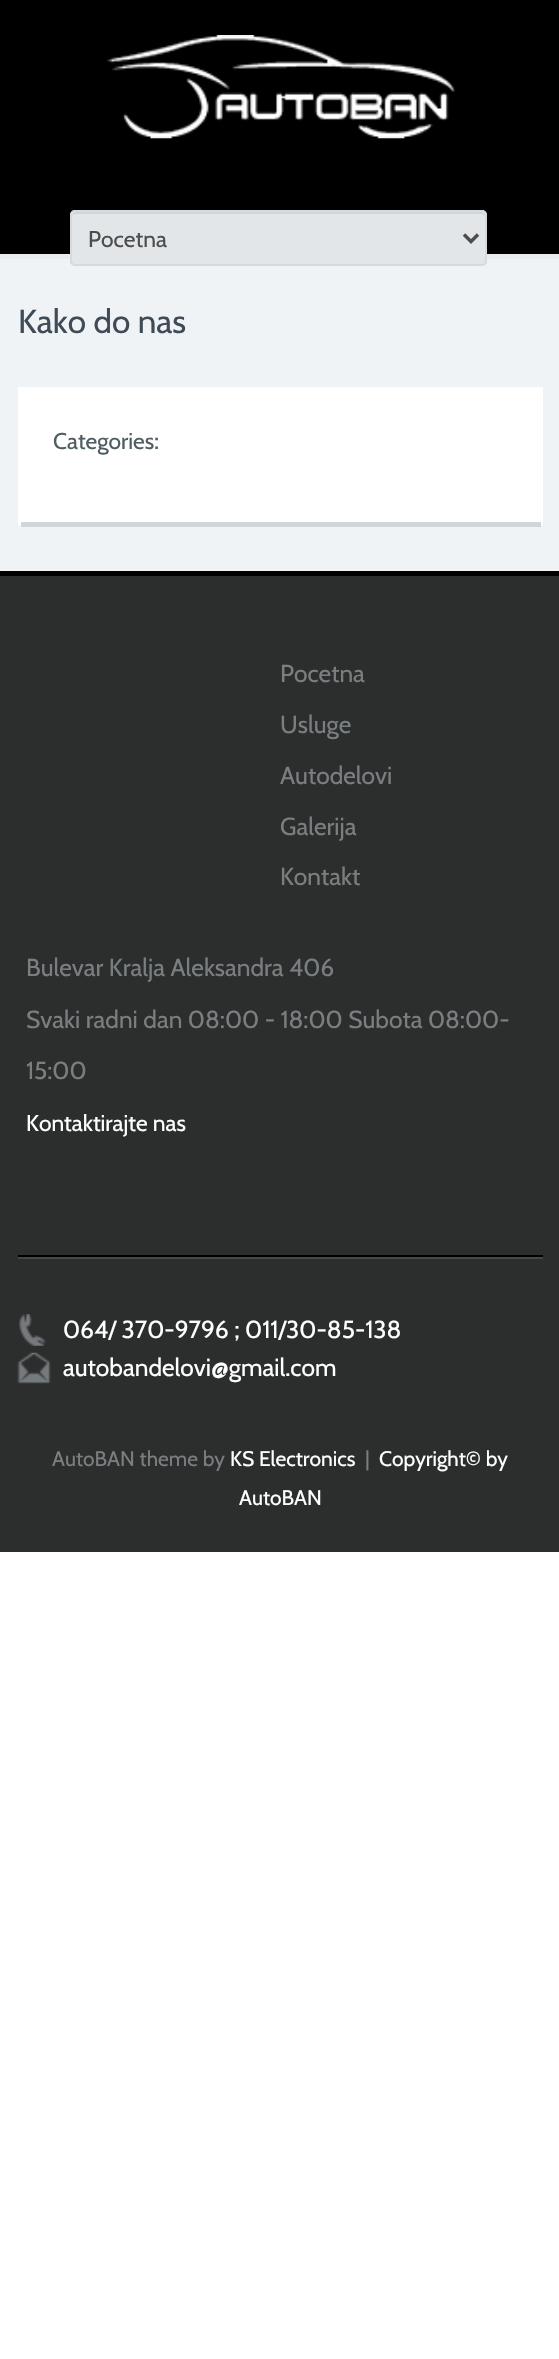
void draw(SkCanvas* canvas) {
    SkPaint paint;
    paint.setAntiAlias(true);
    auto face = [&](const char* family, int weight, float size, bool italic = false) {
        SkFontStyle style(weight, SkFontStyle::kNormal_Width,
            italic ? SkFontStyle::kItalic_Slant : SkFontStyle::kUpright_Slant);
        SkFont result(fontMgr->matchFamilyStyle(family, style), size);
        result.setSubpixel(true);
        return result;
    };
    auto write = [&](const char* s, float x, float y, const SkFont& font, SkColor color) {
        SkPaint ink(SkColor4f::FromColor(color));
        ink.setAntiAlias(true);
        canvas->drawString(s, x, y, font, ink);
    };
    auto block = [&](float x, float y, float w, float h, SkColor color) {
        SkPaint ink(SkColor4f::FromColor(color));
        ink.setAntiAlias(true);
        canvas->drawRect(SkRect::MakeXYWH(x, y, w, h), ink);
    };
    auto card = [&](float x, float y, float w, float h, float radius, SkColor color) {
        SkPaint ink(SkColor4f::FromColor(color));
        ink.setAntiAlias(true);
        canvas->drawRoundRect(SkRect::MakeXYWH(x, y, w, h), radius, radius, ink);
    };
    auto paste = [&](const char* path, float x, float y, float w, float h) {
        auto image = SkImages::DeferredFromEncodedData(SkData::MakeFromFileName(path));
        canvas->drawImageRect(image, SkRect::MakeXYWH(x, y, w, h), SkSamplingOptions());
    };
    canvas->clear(SK_ColorWHITE);
    block(0, 0, 559, 254, SK_ColorBLACK);
    paste("pic1.png", 106, 35, 349, 104);
    block(0, 259, 559, 312, SkColorSetRGB(240, 243, 245));
    block(0, 254, 559, 5, SkColorSetRGB(230, 236, 239));
    card(70, 210, 417, 56, 5, SkColorSetRGB(226, 230, 233));
    paint.setColor(SkColorSetRGB(206, 214, 219));
    canvas->drawPath(SkPathBuilder().moveTo(75, 214).lineTo(481, 214).cubicTo(483, 214, 485, 215, 485, 217).lineTo(485, 216).cubicTo(485, 214, 483, 212, 481, 212).lineTo(76, 212).cubicTo(74, 212, 72, 214, 72, 216).lineTo(72, 217).cubicTo(72, 215, 73, 214, 75, 214).close().detach(), paint);
    paint.setStyle(SkPaint::kStroke_Style);
    paint.setStrokeWidth(2);
    paint.setColor(SkColorSetRGB(214, 218, 221));
    canvas->drawRoundRect(SkRect::MakeXYWH(71, 211, 415, 54), 4, 4, paint);
    paint.setStrokeWidth(3.5f);
    paint.setColor(SkColorSetRGB(77, 77, 77));
    canvas->drawPath(SkPathBuilder().moveTo(464, 234.5f).lineTo(471, 241.5f).lineTo(478, 234.5f).detach(), paint);
    auto kFont1 = face("Cabin", 400, 22.75f);
    write("Pocetna", 88, 247, kFont1, SkColorSetRGB(77, 77, 77));
    auto kFont2 = face("Cabin", 400, 33.25f);
    write("Kako do nas", 18, 333, kFont2, SkColorSetRGB(63, 75, 86));
    paint.setStyle(SkPaint::kFill_Style);
    paint.setColor(SK_ColorWHITE);
    canvas->drawPath(SkPathBuilder().moveTo(18, 387).lineTo(543, 387).lineTo(543, 522).cubicTo(543, 525, 541, 527, 538, 527).lineTo(23, 527).cubicTo(20, 527, 18, 525, 18, 522).close().detach(), paint);
    block(21, 522, 520, 5, SkColorSetRGB(206, 214, 219));
    write("Categories:", 53, 449, kFont1, SkColorSetRGB(79, 94, 98));
    block(0, 576, 559, 976, SkColorSetRGB(44, 45, 45));
    block(0, 571, 559, 5, SK_ColorBLACK);
    auto kFont3 = face("Cabin", 400, 24.5f);
    write("Pocetna", 280, 682, kFont3, SkColorSetRGB(121, 126, 128));
    write("Usluge", 280, 733, kFont3, SkColorSetRGB(121, 126, 128));
    write("Autodelovi", 280, 784, kFont3, SkColorSetRGB(121, 126, 128));
    write("Galerija", 280, 835, kFont3, SkColorSetRGB(121, 126, 128));
    write("Kontakt", 280, 885, kFont3, SkColorSetRGB(121, 126, 128));
    write("Bulevar Kralja Aleksandra 406", 26, 976, kFont3, SkColorSetRGB(121, 126, 128));
    write("Svaki radni dan 08:00 - 18:00 Subota 08:00-", 26, 1028, kFont3, SkColorSetRGB(121, 126, 128));
    write("15:00", 26, 1079, kFont3, SkColorSetRGB(121, 126, 128));
    write("Kontaktirajte nas", 26, 1131, kFont1, SK_ColorWHITE);
    block(18, 1255, 525, 2, SK_ColorBLACK);
    block(18, 1257, 525, 2, SkColorSetRGB(69, 70, 70));
    paste("pic2.png", 19, 1314, 27, 32);
    write("064/ 370-9796 ; 011/30-85-138", 63, 1338, kFont3, SK_ColorWHITE);
    paste("pic3.png", 17, 1352, 34, 32);
    write("autobandelovi@gmail.com", 63, 1376, kFont3, SK_ColorWHITE);
    auto kFont4 = face("Cabin", 400, 21);
    write("AutoBAN theme by", 52, 1466, kFont4, SkColorSetRGB(121, 126, 128));
    write("KS Electronics", 230, 1466, kFont4, SK_ColorWHITE);
    write("|", 365, 1466, kFont4, SkColorSetRGB(121, 126, 128));
    write("Copyright© by", 379, 1466, kFont4, SK_ColorWHITE);
    write("AutoBAN", 239, 1505, kFont4, SK_ColorWHITE);
}
